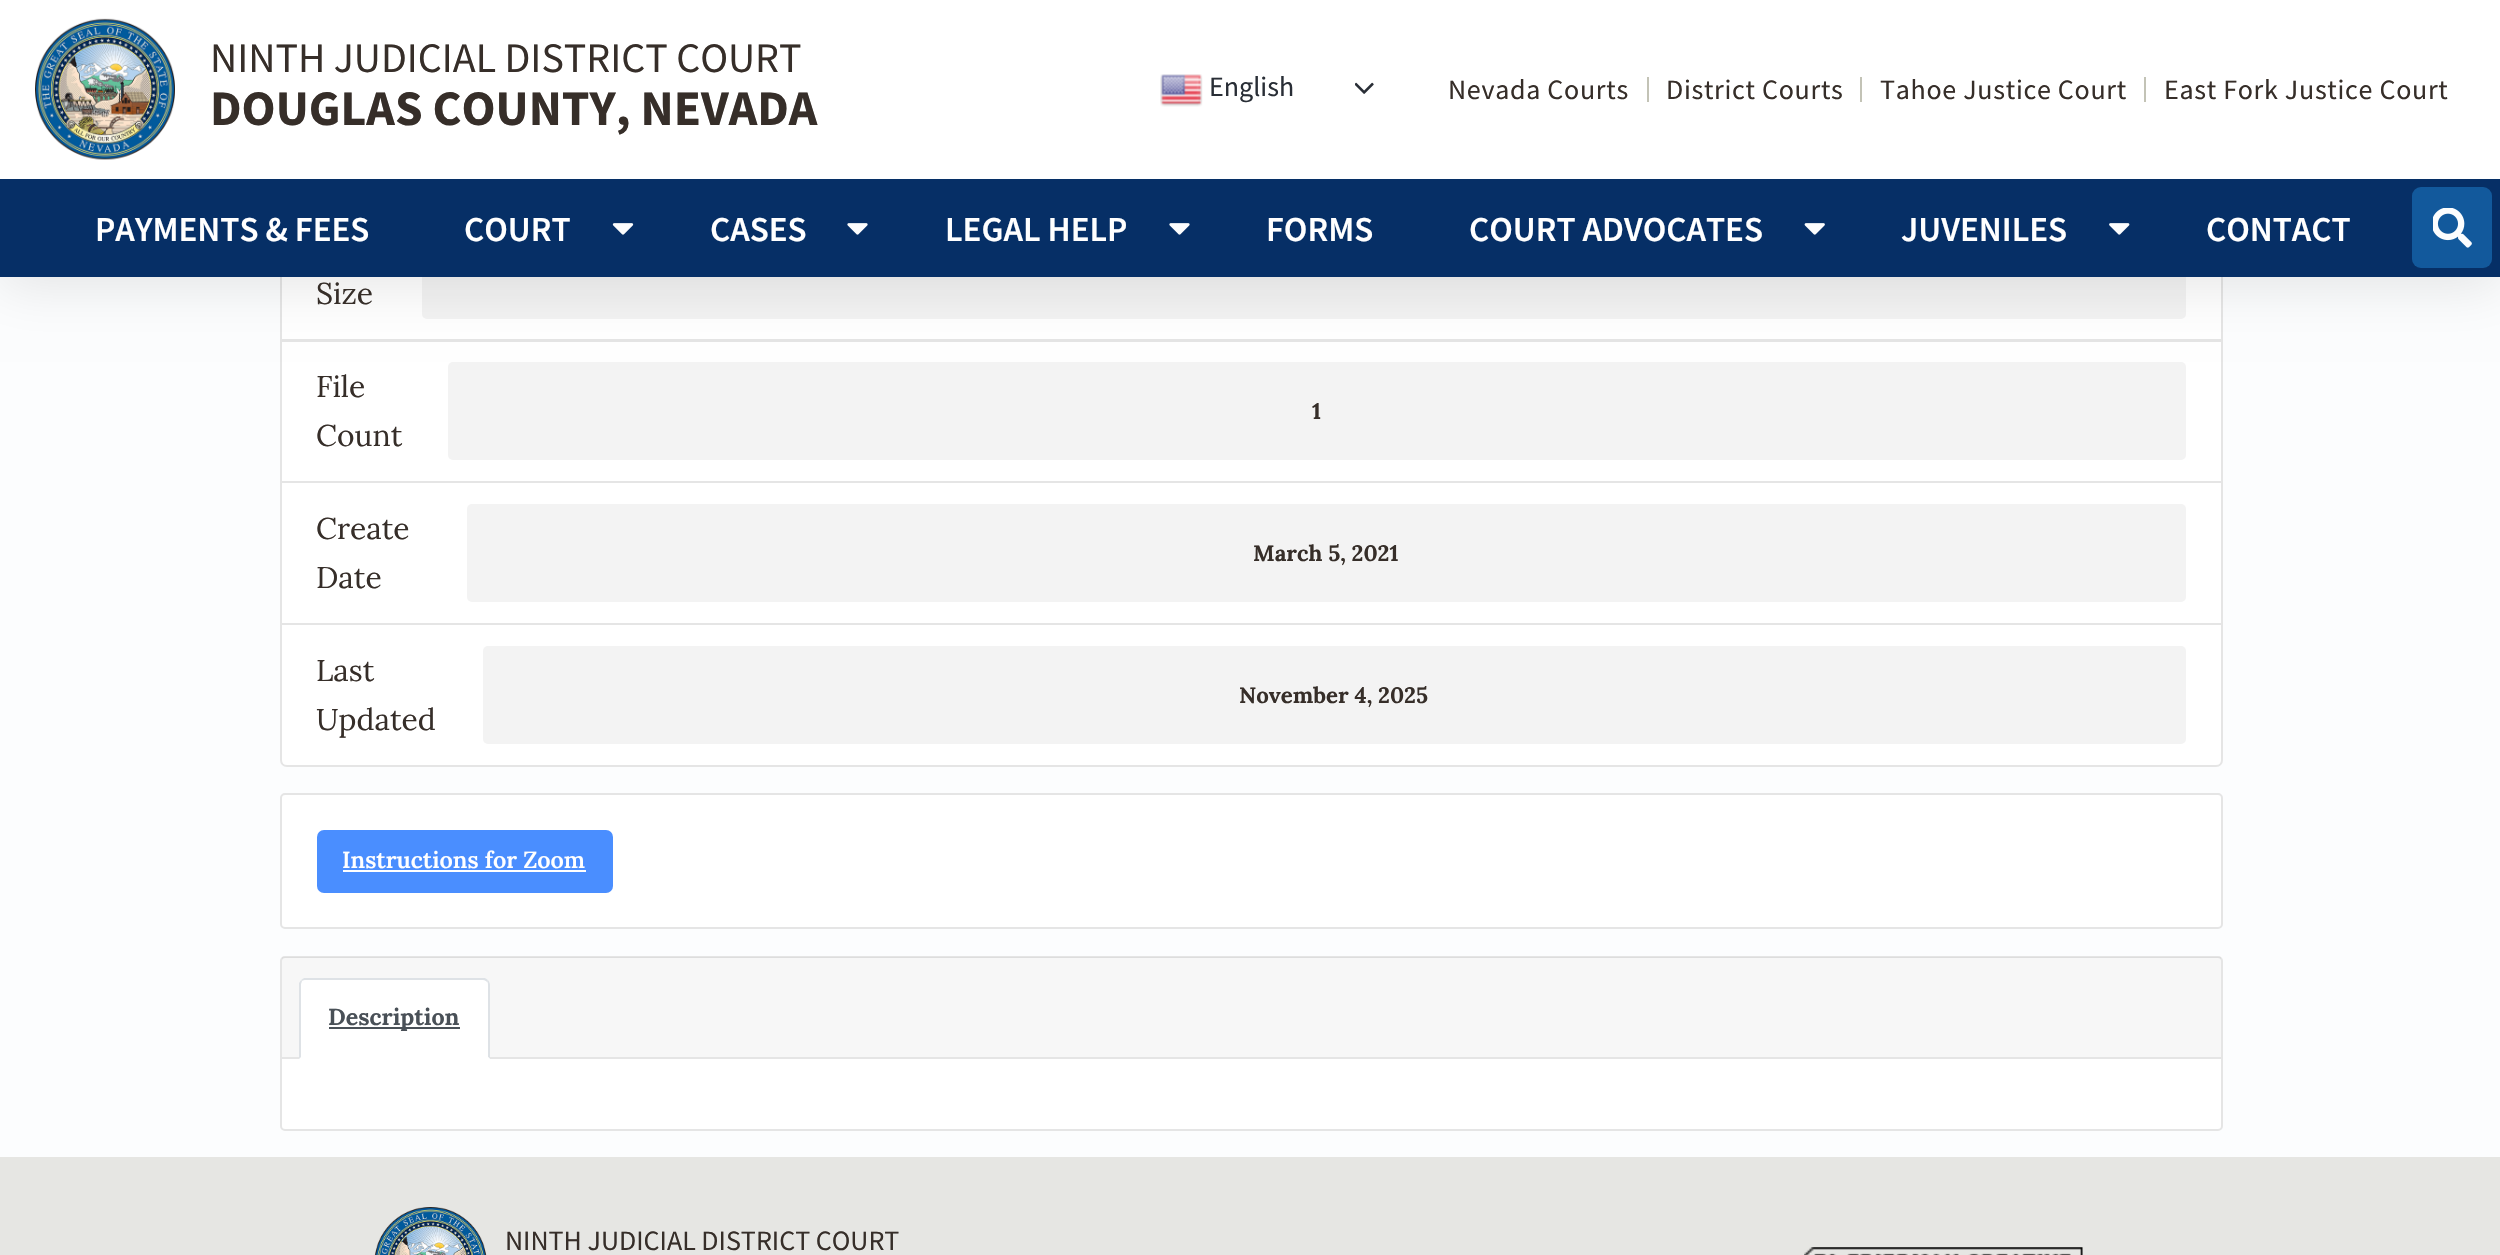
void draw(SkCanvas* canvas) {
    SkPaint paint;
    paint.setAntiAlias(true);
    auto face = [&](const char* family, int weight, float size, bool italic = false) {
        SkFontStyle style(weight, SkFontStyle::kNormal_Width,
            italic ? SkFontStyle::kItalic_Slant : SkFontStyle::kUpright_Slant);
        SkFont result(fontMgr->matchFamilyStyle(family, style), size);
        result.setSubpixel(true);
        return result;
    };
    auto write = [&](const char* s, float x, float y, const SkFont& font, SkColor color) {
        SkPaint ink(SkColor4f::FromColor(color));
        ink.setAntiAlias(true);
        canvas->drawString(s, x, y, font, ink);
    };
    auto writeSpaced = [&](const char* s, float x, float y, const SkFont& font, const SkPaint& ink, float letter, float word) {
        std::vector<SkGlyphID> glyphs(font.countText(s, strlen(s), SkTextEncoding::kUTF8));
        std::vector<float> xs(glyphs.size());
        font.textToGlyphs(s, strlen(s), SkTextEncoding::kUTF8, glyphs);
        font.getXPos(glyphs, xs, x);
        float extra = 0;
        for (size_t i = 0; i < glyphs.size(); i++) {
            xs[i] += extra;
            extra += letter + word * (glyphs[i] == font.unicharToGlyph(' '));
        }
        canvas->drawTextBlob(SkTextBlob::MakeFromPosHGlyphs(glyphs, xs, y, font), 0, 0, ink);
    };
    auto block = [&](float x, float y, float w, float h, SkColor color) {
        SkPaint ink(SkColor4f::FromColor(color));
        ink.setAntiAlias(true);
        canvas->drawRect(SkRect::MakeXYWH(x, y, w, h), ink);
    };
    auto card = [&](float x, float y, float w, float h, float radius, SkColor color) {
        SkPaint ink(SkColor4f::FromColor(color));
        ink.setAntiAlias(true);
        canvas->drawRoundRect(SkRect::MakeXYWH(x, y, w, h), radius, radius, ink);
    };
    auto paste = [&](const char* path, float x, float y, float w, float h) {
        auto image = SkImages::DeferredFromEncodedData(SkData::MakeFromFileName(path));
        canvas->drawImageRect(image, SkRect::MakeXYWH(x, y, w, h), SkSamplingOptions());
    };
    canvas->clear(SkColorSetRGB(252, 253, 254));
    block(282, 277, 1939, 62, SK_ColorWHITE);
    paint.setStyle(SkPaint::kStroke_Style);
    paint.setStrokeWidth(2);
    paint.setColor(SkColorSetRGB(229, 229, 229));
    canvas->drawRect(SkRect::MakeXYWH(281, 199, 1941, 141), paint);
    card(422, 221, 1764, 98, 5, SkColorSetRGB(243, 243, 243));
    paint.setStyle(SkPaint::kFill_Style);
    paint.setColor(SK_ColorWHITE);
    canvas->drawRect(SkRect::MakeXYWH(281, 341, 1941, 141), paint);
    paint.setStyle(SkPaint::kStroke_Style);
    paint.setColor(SkColorSetRGB(229, 229, 229));
    canvas->drawRect(SkRect::MakeXYWH(281, 341, 1941, 141), paint);
    card(448, 362, 1738, 98, 5, SkColorSetRGB(243, 243, 243));
    paint.setStyle(SkPaint::kFill_Style);
    paint.setColor(SkColorSetARGB(26, 0, 0, 0));
    paint.setMaskFilter(SkMaskFilter::MakeBlur(kNormal_SkBlurStyle, 26));
    canvas->drawRect(SkRect::MakeXYWH(0, 9, 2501, 276), paint);
    paint.setMaskFilter(nullptr);
    block(0, 0, 2500, 179, SK_ColorWHITE);
    paste("pic1.png", 35, 18, 140, 142);
    auto kFont1 = face("Source Sans Pro", 400, 42);
    write("NINTH JUDICIAL DISTRICT COURT", 210, 72, kFont1, SkColorSetRGB(54, 46, 41));
    auto kFont2 = face("Source Sans Pro", 700, 49.8f);
    write("DOUGLAS COUNTY, NEVADA", 210, 125, kFont2, SkColorSetRGB(54, 46, 41));
    paste("pic2.png", 1160, 74, 43, 33);
    auto kFont3 = face("Source Sans Pro", 400, 28);
    write("English", 1209, 96, kFont3, SkColorSetRGB(41, 46, 54));
    paste("pic3.png", 1355, 82, 19, 12);
    paint.setColor(SkColorSetRGB(54, 46, 41));
    writeSpaced("Nevada Courts", 1448, 99, kFont3, paint, 0.7f, 0);
    block(1647, 77, 2, 25, SkColorSetRGB(195, 195, 182));
    writeSpaced("District Courts", 1666, 99, kFont3, paint, 0.7f, 0);
    block(1860, 77, 2, 25, SkColorSetRGB(195, 195, 182));
    writeSpaced("Tahoe Justice Court", 1880, 99, kFont3, paint, 0.7f, 0);
    block(2144, 77, 2, 25, SkColorSetRGB(195, 195, 182));
    writeSpaced("East Fork Justice Court", 2164, 99, kFont3, paint, 0.7f, 0);
    block(0, 179, 2500, 98, SkColorSetRGB(6, 47, 102));
    auto kFont4 = face("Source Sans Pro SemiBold", 600, 35);
    write("PAYMENTS & FEES", 95, 241, kFont4, SK_ColorWHITE);
    write("COURT", 464, 241, kFont4, SK_ColorWHITE);
    paste("pic4.png", 612, 223, 22, 12);
    write("CASES", 710, 241, kFont4, SK_ColorWHITE);
    paste("pic5.png", 847, 223, 21, 12);
    write("LEGAL HELP", 945, 241, kFont4, SK_ColorWHITE);
    paste("pic5.png", 1169, 223, 21, 12);
    write("FORMS", 1266, 241, kFont4, SK_ColorWHITE);
    write("COURT ADVOCATES", 1469, 241, kFont4, SK_ColorWHITE);
    paste("pic6.png", 1804, 223, 21, 12);
    write("JUVENILES", 1901, 241, kFont4, SK_ColorWHITE);
    paste("pic7.png", 2109, 223, 21, 12);
    write("CONTACT", 2206, 241, kFont4, SK_ColorWHITE);
    card(2412, 187, 80, 81, 9, SkColorSetRGB(18, 89, 156));
    paste("pic8.png", 2433, 208, 39, 40);
    auto kFont5 = face("Lora", 400, 30);
    write("Size", 316, 304, kFont5, SkColorSetRGB(54, 46, 41));
    write("File", 316, 397, kFont5, SkColorSetRGB(54, 46, 41));
    auto kFont6 = face("Lora", 700, 22.25f);
    write("1", 1312, 419, kFont6, SkColorSetRGB(54, 46, 41));
    write("Count", 316, 446, kFont5, SkColorSetRGB(54, 46, 41));
    paint.setColor(SK_ColorWHITE);
    canvas->drawRect(SkRect::MakeXYWH(281, 482, 1941, 142), paint);
    paint.setStyle(SkPaint::kStroke_Style);
    paint.setColor(SkColorSetRGB(229, 229, 229));
    canvas->drawRect(SkRect::MakeXYWH(281, 482, 1941, 142), paint);
    write("Create", 316, 539, kFont5, SkColorSetRGB(54, 46, 41));
    card(467, 504, 1719, 98, 5, SkColorSetRGB(243, 243, 243));
    write("March 5, 2021", 1253, 561, kFont6, SkColorSetRGB(54, 46, 41));
    write("Date", 316, 588, kFont5, SkColorSetRGB(54, 46, 41));
    paint.setStyle(SkPaint::kFill_Style);
    paint.setColor(SK_ColorWHITE);
    canvas->drawPath(SkPathBuilder().moveTo(281, 624).lineTo(2222, 624).lineTo(2222, 760).cubicTo(2222, 763.5f, 2219.5f, 766, 2216, 766).lineTo(287, 766).cubicTo(283.5f, 766, 281, 763.5f, 281, 760).close().detach(), paint);
    paint.setStyle(SkPaint::kStroke_Style);
    paint.setColor(SkColorSetRGB(229, 229, 229));
    canvas->drawPath(SkPathBuilder().moveTo(281, 624).lineTo(2222, 624).lineTo(2222, 760).cubicTo(2222, 763.5f, 2219.5f, 766, 2216, 766).lineTo(287, 766).cubicTo(283.5f, 766, 281, 763.5f, 281, 760).close().detach(), paint);
    write("Last", 316, 681, kFont5, SkColorSetRGB(54, 46, 41));
    card(483, 646, 1703, 98, 5, SkColorSetRGB(243, 243, 243));
    write("November 4, 2025", 1239, 703, kFont6, SkColorSetRGB(54, 46, 41));
    write("Updated", 316, 730, kFont5, SkColorSetRGB(54, 46, 41));
    paint.setStyle(SkPaint::kFill_Style);
    paint.setColor(SK_ColorWHITE);
    canvas->drawRoundRect(SkRect::MakeXYWH(281, 794, 1941, 134), 4, 4, paint);
    paint.setStyle(SkPaint::kStroke_Style);
    paint.setColor(SkColorSetRGB(229, 229, 229));
    canvas->drawRoundRect(SkRect::MakeXYWH(281, 794, 1941, 134), 4, 4, paint);
    card(317, 830, 296, 63, 7, SkColorSetRGB(74, 142, 255));
    auto kFont7 = face("Lora", 600, 23.25f);
    write("Instructions for Zoom", 342, 868, kFont7, SK_ColorWHITE);
    block(343, 870, 243, 2, SK_ColorWHITE);
    paint.setStyle(SkPaint::kFill_Style);
    paint.setColor(SK_ColorWHITE);
    canvas->drawRoundRect(SkRect::MakeXYWH(281, 957, 1941, 173), 4, 4, paint);
    paint.setStyle(SkPaint::kStroke_Style);
    paint.setColor(SkColorSetRGB(229, 229, 229));
    canvas->drawRoundRect(SkRect::MakeXYWH(281, 957, 1941, 173), 4, 4, paint);
    block(282, 957, 1939, 100, SkColorSetARGB(8, 0, 0, 0));
    block(282, 1057, 1939, 2, SkColorSetRGB(229, 229, 229));
    paint.setStyle(SkPaint::kFill_Style);
    paint.setColor(SK_ColorWHITE);
    canvas->drawPath(SkPathBuilder().moveTo(306, 978).lineTo(483, 978).cubicTo(487, 978, 490, 981, 490, 985).lineTo(490, 1059).lineTo(299, 1059).lineTo(299, 985).cubicTo(299, 981, 302, 978, 306, 978).close().detach(), paint);
    paint.setColor(SkColorSetRGB(222, 226, 230));
    canvas->drawPath(SkPathBuilder().moveTo(306, 980).cubicTo(304, 980, 303, 980, 302, 981).lineTo(301, 980).lineTo(304, 978).lineTo(485, 978).lineTo(488, 980).lineTo(487, 982).cubicTo(486, 981, 485, 980, 483, 980).close().detach(), paint);
    canvas->drawPath(SkPathBuilder().moveTo(490, 1059).lineTo(490, 985).cubicTo(490, 983, 489, 981, 488, 980).lineTo(487, 982).cubicTo(488, 982, 488, 984, 488, 985).lineTo(488, 1057).close().detach(), paint);
    paint.setColor(SK_ColorWHITE);
    canvas->drawPath(SkPathBuilder().moveTo(490, 1059).lineTo(488, 1057).lineTo(301, 1057).lineTo(299, 1059).close().detach(), paint);
    paint.setColor(SkColorSetRGB(222, 226, 230));
    canvas->drawPath(SkPathBuilder().moveTo(299, 1059).lineTo(299, 983).lineTo(301, 980).lineTo(302, 981).lineTo(301, 984).lineTo(301, 1057).close().detach(), paint);
    block(329, 1027, 131, 2, SkColorSetRGB(73, 80, 87));
    auto kFont8 = face("Lora", 700, 23.25f);
    write("Description", 328, 1025, kFont8, SkColorSetRGB(73, 80, 87));
    block(0, 1157, 2500, 98, SkColorSetRGB(230, 230, 227));
    paste("pic9.png", 374, 1207, 113, 48);
    write("NINTH JUDICIAL DISTRICT COURT", 505, 1250, kFont3, SkColorSetRGB(54, 46, 41));
    paste("pic10.png", 1804, 1247, 279, 8);
}
